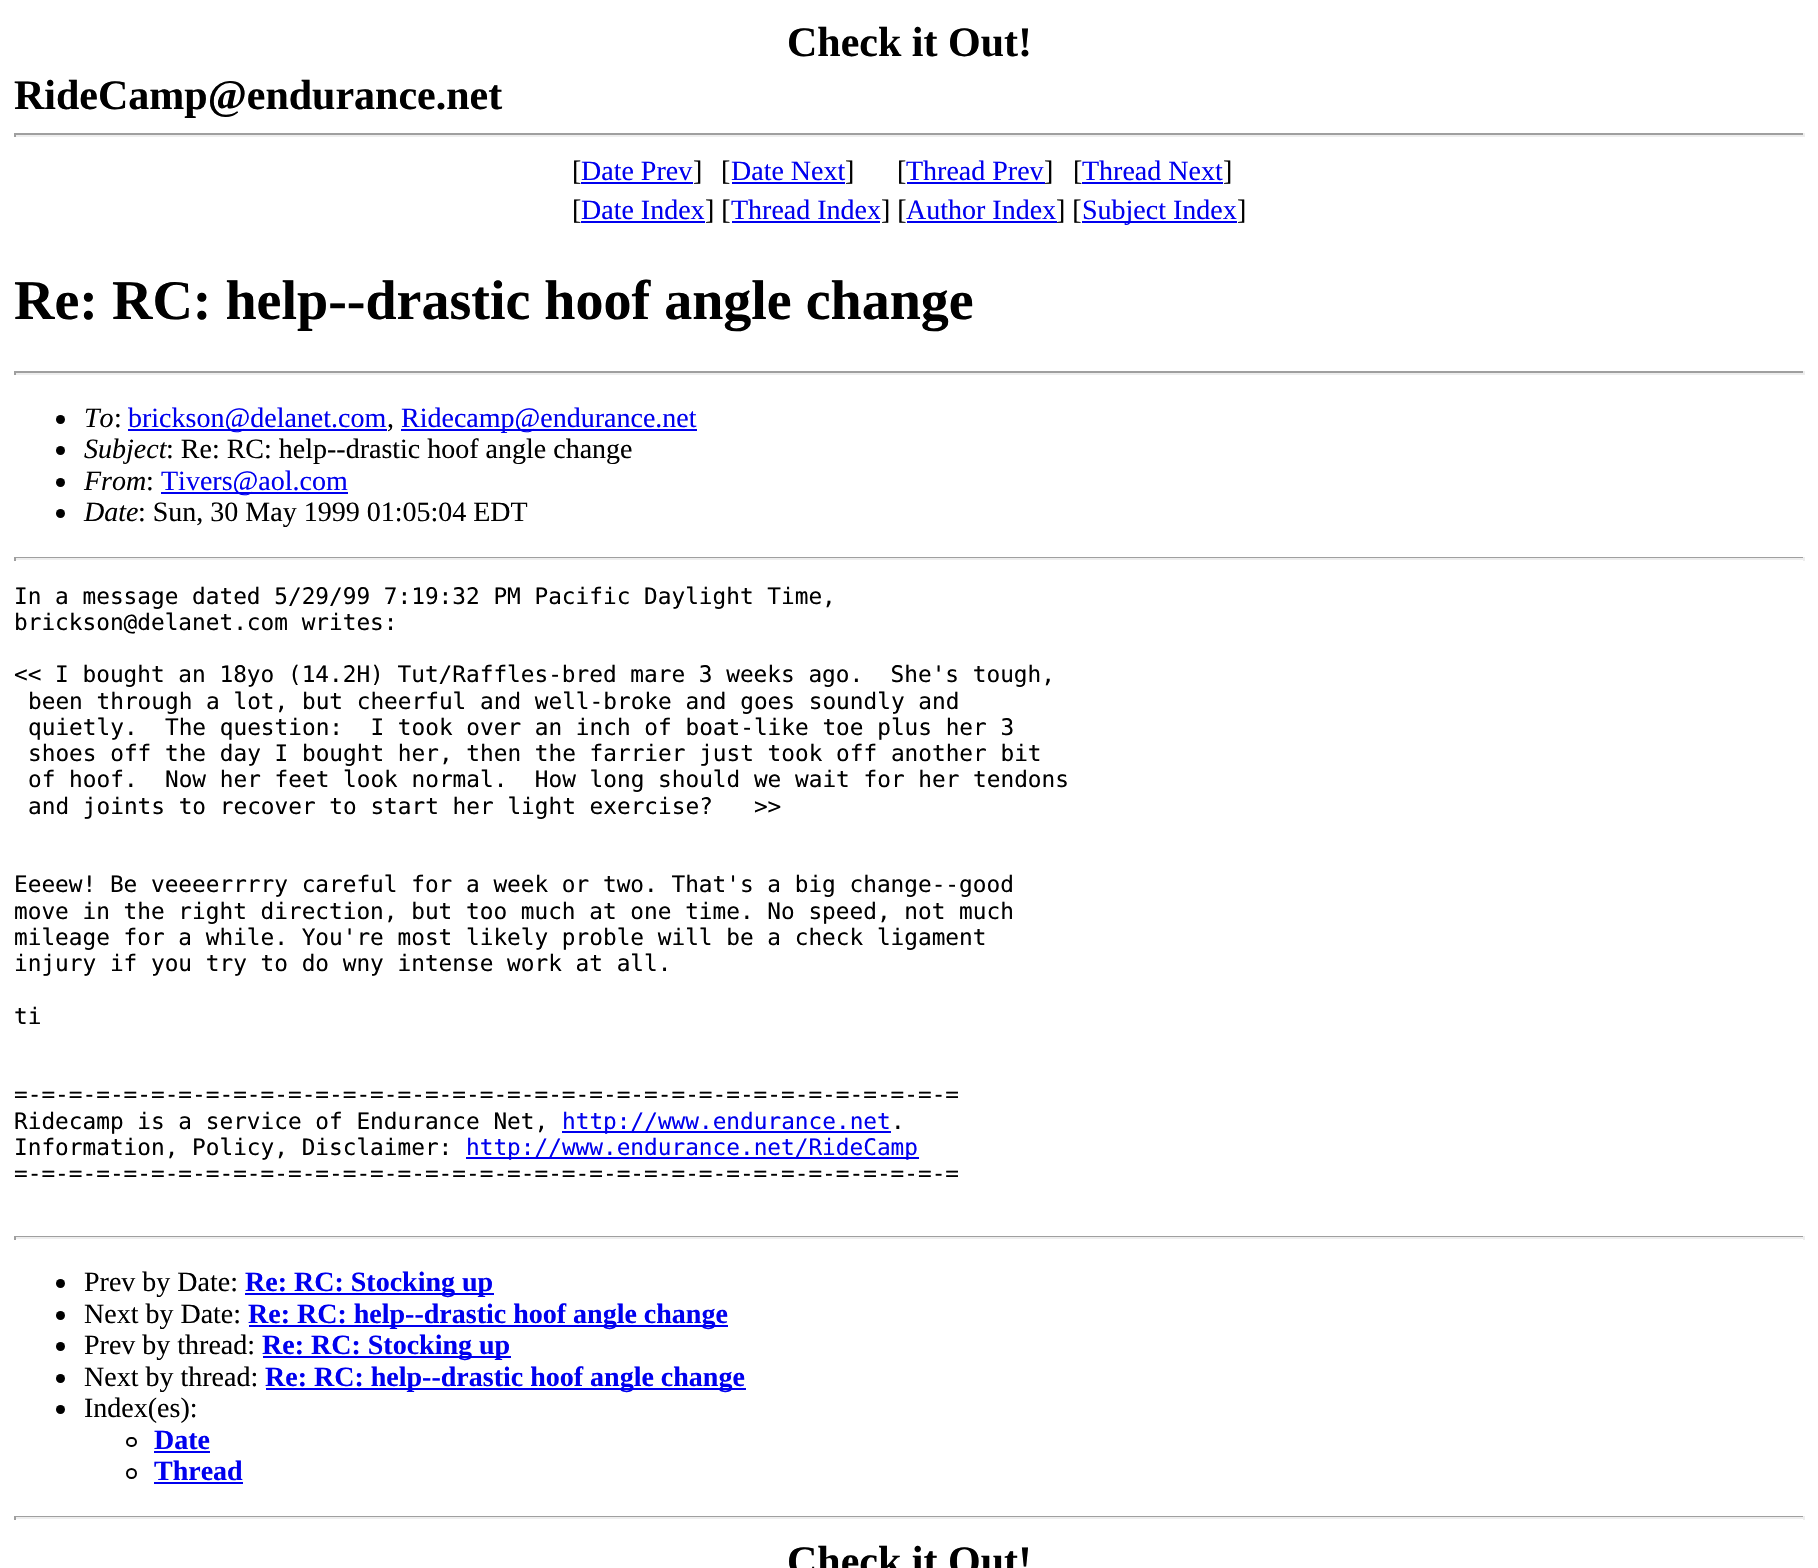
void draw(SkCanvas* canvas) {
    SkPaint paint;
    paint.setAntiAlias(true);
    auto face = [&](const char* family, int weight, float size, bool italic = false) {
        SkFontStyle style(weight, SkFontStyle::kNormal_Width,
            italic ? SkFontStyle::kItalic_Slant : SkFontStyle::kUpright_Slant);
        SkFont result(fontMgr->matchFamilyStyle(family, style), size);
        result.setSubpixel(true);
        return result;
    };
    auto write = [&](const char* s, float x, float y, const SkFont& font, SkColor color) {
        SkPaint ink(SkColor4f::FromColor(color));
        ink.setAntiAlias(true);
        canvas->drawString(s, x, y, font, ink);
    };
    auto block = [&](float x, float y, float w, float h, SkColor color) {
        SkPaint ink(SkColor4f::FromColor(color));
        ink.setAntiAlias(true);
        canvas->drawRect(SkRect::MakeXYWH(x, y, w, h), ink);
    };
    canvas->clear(SK_ColorWHITE);
    auto kFont1 = face("Liberation Serif", 700, 42);
    write("Check it Out!", 787, 56, kFont1, SK_ColorBLACK);
    write("RideCamp@endurance.net", 14, 109, kFont1, SK_ColorBLACK);
    block(14, 133, 1790, 2, SkColorSetRGB(159, 159, 159));
    block(1803, 133, 2, 4, SkColorSetRGB(238, 238, 238));
    block(14, 135, 1790, 2, SkColorSetRGB(238, 238, 238));
    block(14, 133, 2, 4, SkColorSetRGB(159, 159, 159));
    auto kFont2 = face("Liberation Serif", 400, 28);
    write("[", 572, 180, kFont2, SK_ColorBLACK);
    write("Date Prev", 581, 180, kFont2, SkColorSetRGB(0, 0, 238));
    block(581, 182, 112, 2, SkColorSetRGB(0, 0, 238));
    write("]", 693, 180, kFont2, SK_ColorBLACK);
    write("[", 721, 180, kFont2, SK_ColorBLACK);
    write("Date Next", 731, 180, kFont2, SkColorSetRGB(0, 0, 238));
    block(732, 182, 113, 2, SkColorSetRGB(0, 0, 238));
    write("]", 845, 180, kFont2, SK_ColorBLACK);
    write("[", 897, 180, kFont2, SK_ColorBLACK);
    write("Thread Prev", 906, 180, kFont2, SkColorSetRGB(0, 0, 238));
    block(907, 182, 138, 2, SkColorSetRGB(0, 0, 238));
    write("]", 1044, 180, kFont2, SK_ColorBLACK);
    write("[", 1073, 180, kFont2, SK_ColorBLACK);
    write("Thread Next", 1082, 180, kFont2, SkColorSetRGB(0, 0, 238));
    block(1082, 182, 141, 2, SkColorSetRGB(0, 0, 238));
    write("]", 1223, 180, kFont2, SK_ColorBLACK);
    write("[", 572, 219, kFont2, SK_ColorBLACK);
    write("Date Index", 581, 219, kFont2, SkColorSetRGB(0, 0, 238));
    block(581, 221, 124, 2, SkColorSetRGB(0, 0, 238));
    write("] [", 705, 219, kFont2, SK_ColorBLACK);
    write("Thread Index", 731, 219, kFont2, SkColorSetRGB(0, 0, 238));
    block(732, 221, 148, 2, SkColorSetRGB(0, 0, 238));
    write("] [", 881, 219, kFont2, SK_ColorBLACK);
    write("Author Index", 906, 219, kFont2, SkColorSetRGB(0, 0, 238));
    block(907, 221, 150, 2, SkColorSetRGB(0, 0, 238));
    write("] [", 1056, 219, kFont2, SK_ColorBLACK);
    block(1082, 221, 155, 2, SkColorSetRGB(0, 0, 238));
    write("Subject Index", 1082, 219, kFont2, SkColorSetRGB(0, 0, 238));
    write("]", 1237, 219, kFont2, SK_ColorBLACK);
    auto kFont3 = face("Liberation Serif", 700, 56);
    write("Re: RC: help--drastic hoof angle change", 14, 319, kFont3, SK_ColorBLACK);
    block(14, 371, 1790, 2, SkColorSetRGB(159, 159, 159));
    block(1803, 371, 2, 4, SkColorSetRGB(238, 238, 238));
    block(14, 373, 1790, 2, SkColorSetRGB(238, 238, 238));
    block(14, 371, 2, 4, SkColorSetRGB(159, 159, 159));
    paint.setColor(SK_ColorBLACK);
    canvas->drawCircle(60.5f, 419.5f, 4.5f, paint);
    auto kFont4 = face("Liberation Serif", 400, 28, true);
    write("To", 84, 427, kFont4, SK_ColorBLACK);
    write(":", 114, 427, kFont2, SK_ColorBLACK);
    block(128, 429, 259, 2, SkColorSetRGB(0, 0, 238));
    write("brickson@delanet.com", 128, 427, kFont2, SkColorSetRGB(0, 0, 238));
    block(401, 429, 296, 2, SkColorSetRGB(0, 0, 238));
    write("Ridecamp@endurance.net", 401, 427, kFont2, SkColorSetRGB(0, 0, 238));
    write(",", 387, 427, kFont2, SK_ColorBLACK);
    canvas->drawCircle(60.5f, 450.5f, 4.5f, paint);
    write("Subject", 84, 458, kFont4, SK_ColorBLACK);
    write(": Re: RC: help--drastic hoof angle change", 166, 458, kFont2, SK_ColorBLACK);
    canvas->drawCircle(60.5f, 482.5f, 4.5f, paint);
    write("From", 84, 490, kFont4, SK_ColorBLACK);
    write(":", 146, 490, kFont2, SK_ColorBLACK);
    block(161, 492, 187, 2, SkColorSetRGB(0, 0, 238));
    write("Tivers@aol.com", 161, 490, kFont2, SkColorSetRGB(0, 0, 238));
    canvas->drawCircle(60.5f, 513.5f, 4.5f, paint);
    write("Date", 84, 521, kFont4, SK_ColorBLACK);
    write(": Sun, 30 May 1999 01:05:04 EDT", 138, 521, kFont2, SK_ColorBLACK);
    block(14, 557, 1790, 1, SkColorSetRGB(159, 159, 159));
    block(1803, 557, 2, 4, SkColorSetRGB(238, 238, 238));
    block(14, 558, 1790, 2, SkColorSetRGB(238, 238, 238));
    block(14, 557, 2, 4, SkColorSetRGB(159, 159, 159));
    auto kFont5 = face("DejaVu Sans Mono", 400, 22.75f);
    write("In a message dated 5/29/99 7:19:32 PM Pacific Daylight Time,", 14, 604, kFont5, SK_ColorBLACK);
    write("brickson@delanet.com writes:", 14, 630, kFont5, SK_ColorBLACK);
    write("<< I bought an 18yo (14.2H) Tut/Raffles-bred mare 3 weeks ago.  She's tough,", 14, 682, kFont5, SK_ColorBLACK);
    write("been through a lot, but cheerful and well-broke and goes soundly and", 28, 709, kFont5, SK_ColorBLACK);
    write("quietly.  The question:  I took over an inch of boat-like toe plus her 3", 28, 735, kFont5, SK_ColorBLACK);
    write("shoes off the day I bought her, then the farrier just took off another bit", 28, 761, kFont5, SK_ColorBLACK);
    write("of hoof.  Now her feet look normal.  How long should we wait for her tendons", 28, 787, kFont5, SK_ColorBLACK);
    write("and joints to recover to start her light exercise?   >>", 28, 814, kFont5, SK_ColorBLACK);
    write("Eeeew! Be veeeerrrry careful for a week or two. That's a big change--good", 14, 892, kFont5, SK_ColorBLACK);
    write("move in the right direction, but too much at one time. No speed, not much", 14, 919, kFont5, SK_ColorBLACK);
    write("mileage for a while. You're most likely proble will be a check ligament", 14, 945, kFont5, SK_ColorBLACK);
    write("injury if you try to do wny intense work at all.", 14, 971, kFont5, SK_ColorBLACK);
    write("ti", 14, 1024, kFont5, SK_ColorBLACK);
    write("=-=-=-=-=-=-=-=-=-=-=-=-=-=-=-=-=-=-=-=-=-=-=-=-=-=-=-=-=-=-=-=-=-=-=", 14, 1102, kFont5, SK_ColorBLACK);
    write("Ridecamp is a service of Endurance Net,", 14, 1129, kFont5, SK_ColorBLACK);
    block(562, 1131, 329, 2, SkColorSetRGB(0, 0, 238));
    write("http://www.endurance.net", 562, 1129, kFont5, SkColorSetRGB(0, 0, 238));
    write(".", 891, 1129, kFont5, SK_ColorBLACK);
    write("Information, Policy, Disclaimer:", 14, 1155, kFont5, SK_ColorBLACK);
    block(466, 1157, 453, 2, SkColorSetRGB(0, 0, 238));
    write("http://www.endurance.net/RideCamp", 466, 1155, kFont5, SkColorSetRGB(0, 0, 238));
    write("=-=-=-=-=-=-=-=-=-=-=-=-=-=-=-=-=-=-=-=-=-=-=-=-=-=-=-=-=-=-=-=-=-=-=", 14, 1181, kFont5, SK_ColorBLACK);
    block(14, 1236, 1790, 1, SkColorSetRGB(159, 159, 159));
    block(1803, 1236, 2, 4, SkColorSetRGB(238, 238, 238));
    block(14, 1237, 1790, 2, SkColorSetRGB(238, 238, 238));
    block(14, 1236, 2, 4, SkColorSetRGB(159, 159, 159));
    canvas->drawCircle(60.5f, 1283.5f, 4.5f, paint);
    write("Prev by Date:", 84, 1291, kFont2, SK_ColorBLACK);
    block(245, 1293, 249, 2, SkColorSetRGB(0, 0, 238));
    auto kFont6 = face("Liberation Serif", 700, 28);
    write("Re: RC: Stocking up", 245, 1291, kFont6, SkColorSetRGB(0, 0, 238));
    canvas->drawCircle(60.5f, 1315.5f, 4.5f, paint);
    write("Next by Date:", 84, 1323, kFont2, SK_ColorBLACK);
    block(249, 1325, 479, 2, SkColorSetRGB(0, 0, 238));
    write("Re: RC: help--drastic hoof angle change", 248, 1323, kFont6, SkColorSetRGB(0, 0, 238));
    canvas->drawCircle(60.5f, 1346.5f, 4.5f, paint);
    write("Prev by thread:", 84, 1354, kFont2, SK_ColorBLACK);
    block(263, 1356, 248, 2, SkColorSetRGB(0, 0, 238));
    write("Re: RC: Stocking up", 262, 1354, kFont6, SkColorSetRGB(0, 0, 238));
    canvas->drawCircle(60.5f, 1378.5f, 4.5f, paint);
    write("Next by thread:", 84, 1386, kFont2, SK_ColorBLACK);
    block(266, 1388, 480, 2, SkColorSetRGB(0, 0, 238));
    write("Re: RC: help--drastic hoof angle change", 265, 1386, kFont6, SkColorSetRGB(0, 0, 238));
    canvas->drawCircle(60.5f, 1409.5f, 4.5f, paint);
    write("Index(es):", 84, 1417, kFont2, SK_ColorBLACK);
    paint.setStyle(SkPaint::kStroke_Style);
    paint.setStrokeWidth(2);
    canvas->drawRoundRect(SkRect::MakeXYWH(127, 1438, 9, 8), 4, 4, paint);
    write("Date", 154, 1449, kFont6, SkColorSetRGB(0, 0, 238));
    block(154, 1451, 56, 2, SkColorSetRGB(0, 0, 238));
    canvas->drawCircle(131.5f, 1473.5f, 4.5f, paint);
    write("Thread", 154, 1480, kFont6, SkColorSetRGB(0, 0, 238));
    block(154, 1482, 89, 2, SkColorSetRGB(0, 0, 238));
    block(14, 1516, 1790, 1, SkColorSetRGB(159, 159, 159));
    block(1803, 1516, 2, 4, SkColorSetRGB(238, 238, 238));
    block(14, 1517, 1790, 2, SkColorSetRGB(238, 238, 238));
    block(14, 1516, 2, 4, SkColorSetRGB(159, 159, 159));
    write("Check it Out!", 787, 1575, kFont1, SK_ColorBLACK);
}
